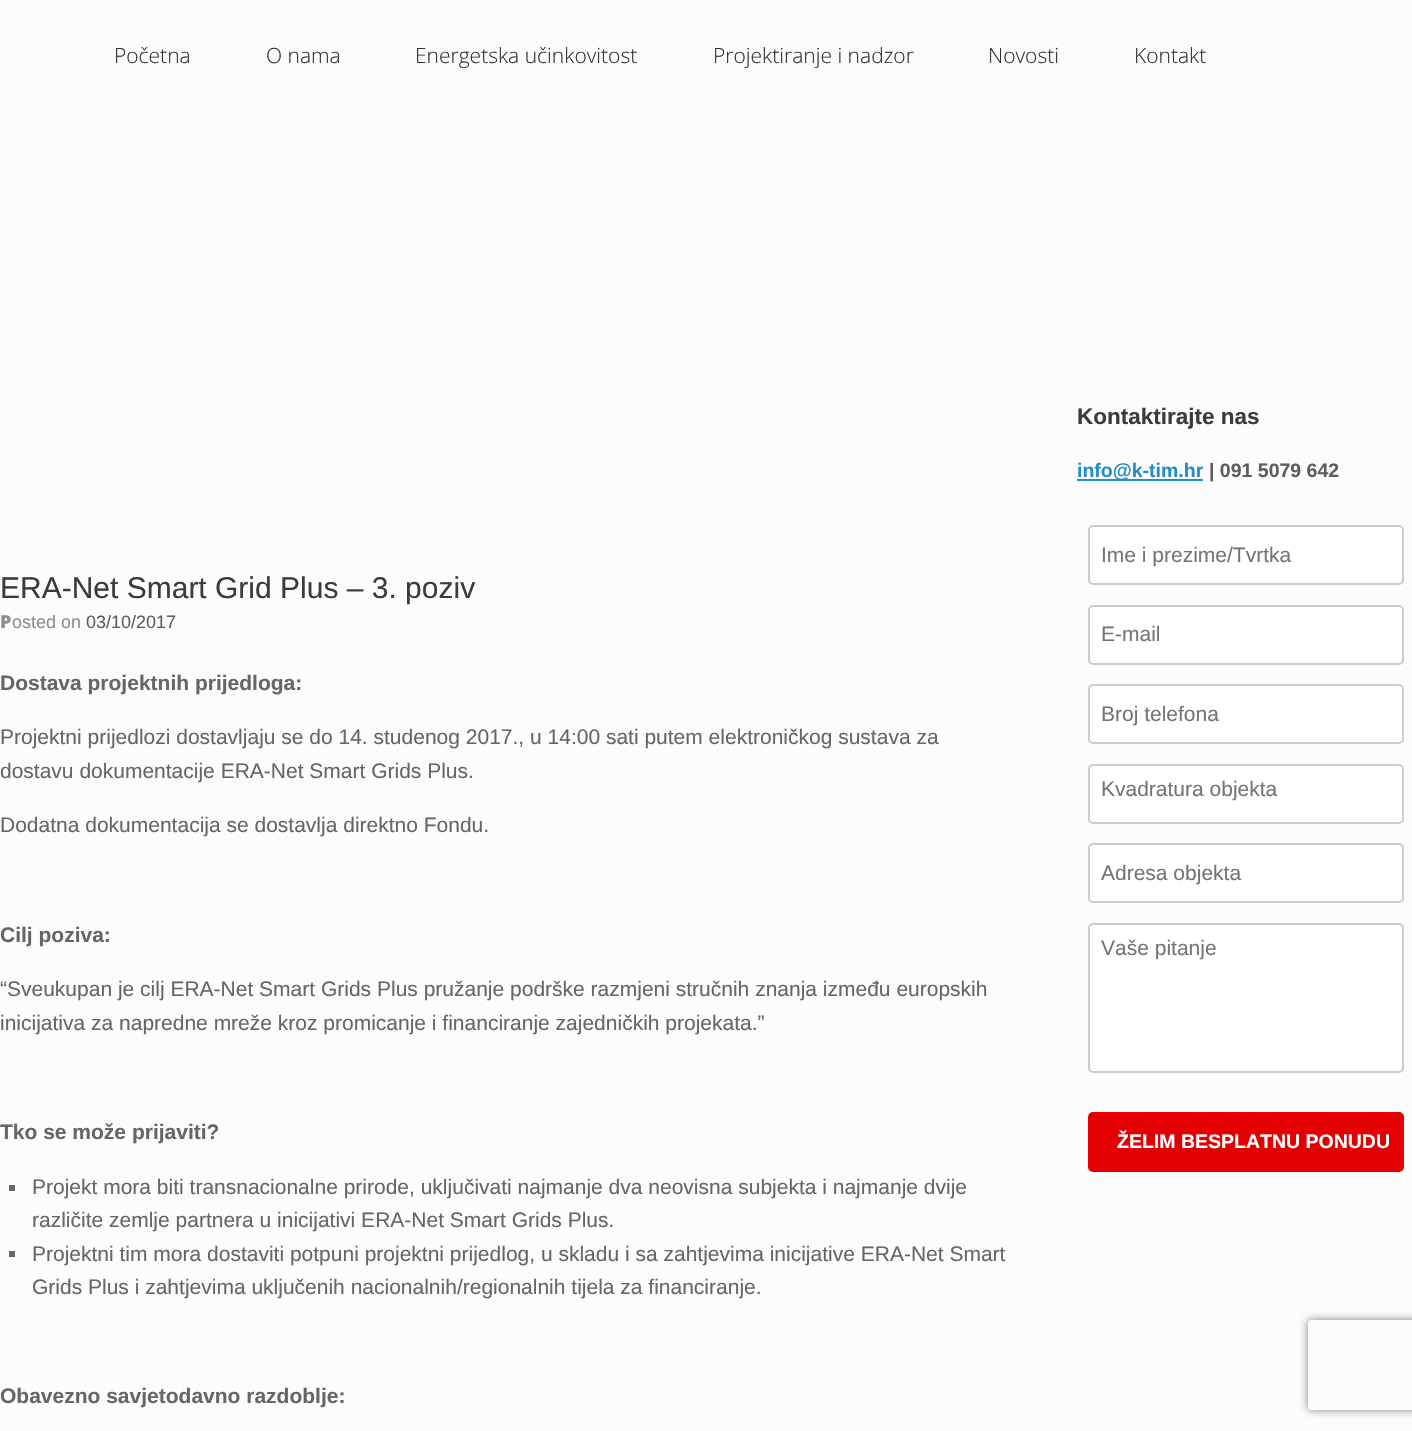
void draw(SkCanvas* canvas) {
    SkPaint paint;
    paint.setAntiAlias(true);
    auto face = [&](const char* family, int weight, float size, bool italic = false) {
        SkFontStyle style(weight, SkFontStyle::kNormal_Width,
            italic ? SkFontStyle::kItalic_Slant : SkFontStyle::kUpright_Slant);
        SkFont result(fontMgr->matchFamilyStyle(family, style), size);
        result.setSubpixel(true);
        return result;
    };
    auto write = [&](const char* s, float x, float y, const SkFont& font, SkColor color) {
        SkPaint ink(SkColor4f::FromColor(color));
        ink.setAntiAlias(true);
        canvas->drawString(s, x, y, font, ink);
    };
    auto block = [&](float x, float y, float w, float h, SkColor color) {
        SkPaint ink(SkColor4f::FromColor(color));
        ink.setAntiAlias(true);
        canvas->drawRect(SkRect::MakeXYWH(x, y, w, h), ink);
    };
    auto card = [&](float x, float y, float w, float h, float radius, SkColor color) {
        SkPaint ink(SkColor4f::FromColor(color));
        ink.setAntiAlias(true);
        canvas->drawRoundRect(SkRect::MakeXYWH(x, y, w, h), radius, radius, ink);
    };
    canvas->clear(SkColorSetRGB(252, 252, 252));
    auto kFont1 = face("Open Sans", 300, 21);
    write("Početna", 114, 63, kFont1, SkColorSetRGB(48, 49, 52));
    write("O nama", 266, 63, kFont1, SkColorSetRGB(48, 49, 52));
    write("Energetska učinkovitost", 415, 63, kFont1, SkColorSetRGB(48, 49, 52));
    write("Projektiranje i nadzor", 713, 63, kFont1, SkColorSetRGB(48, 49, 52));
    write("Novosti", 988, 63, kFont1, SkColorSetRGB(48, 49, 52));
    write("Kontakt", 1134, 63, kFont1, SkColorSetRGB(48, 49, 52));
    auto kFont2 = face("Liberation Sans", 400, 30);
    write("ERA-Net Smart Grid Plus – 3. poziv", 0, 598, kFont2, SkColorSetRGB(59, 59, 59));
    auto kFont3 = face("Noto Sans", 900, 18);
    write("P", 0, 628, kFont3, SkColorSetRGB(143, 143, 143));
    auto kFont4 = face("Liberation Sans", 400, 18);
    write("osted on", 12, 628, kFont4, SkColorSetRGB(143, 143, 143));
    write("03/10/2017", 86, 628, kFont4, SkColorSetRGB(94, 94, 94));
    auto kFont5 = face("Liberation Sans", 700, 21);
    write("Dostava projektnih prijedloga:", 0, 690, kFont5, SkColorSetRGB(102, 102, 102));
    auto kFont6 = face("Liberation Sans", 400, 21);
    write("Projektni prijedlozi dostavljaju se do 14. studenog 2017., u 14:00 sati putem elektroničkog sustava za", 0, 744, kFont6, SkColorSetRGB(102, 102, 102));
    write("dostavu dokumentacije ERA-Net Smart Grids Plus.", 0, 778, kFont6, SkColorSetRGB(102, 102, 102));
    write("Dodatna dokumentacija se dostavlja direktno Fondu.", 0, 832, kFont6, SkColorSetRGB(102, 102, 102));
    write("Cilj poziva:", 0, 942, kFont5, SkColorSetRGB(102, 102, 102));
    write("“Sveukupan je cilj ERA-Net Smart Grids Plus pružanje podrške razmjeni stručnih znanja između europskih", 0, 996, kFont6, SkColorSetRGB(102, 102, 102));
    write("inicijativa za napredne mreže kroz promicanje i financiranje zajedničkih projekata.”", 0, 1030, kFont6, SkColorSetRGB(102, 102, 102));
    write("Tko se može prijaviti?", 0, 1139, kFont5, SkColorSetRGB(102, 102, 102));
    block(9, 1185, 6, 6, SkColorSetRGB(102, 102, 102));
    write("Projekt mora biti transnacionalne prirode, uključivati najmanje dva neovisna subjekta i najmanje dvije", 32, 1194, kFont6, SkColorSetRGB(102, 102, 102));
    write("različite zemlje partnera u inicijativi ERA-Net Smart Grids Plus.", 32, 1227, kFont6, SkColorSetRGB(102, 102, 102));
    block(9, 1251, 6, 6, SkColorSetRGB(102, 102, 102));
    write("Projektni tim mora dostaviti potpuni projektni prijedlog, u skladu i sa zahtjevima inicijative ERA-Net Smart", 32, 1261, kFont6, SkColorSetRGB(102, 102, 102));
    write("Grids Plus i zahtjevima uključenih nacionalnih/regionalnih tijela za financiranje.", 32, 1294, kFont6, SkColorSetRGB(102, 102, 102));
    write("Obavezno savjetodavno razdoblje:", 0, 1403, kFont5, SkColorSetRGB(102, 102, 102));
    auto kFont7 = face("Liberation Sans", 700, 22.5f);
    write("Kontaktirajte nas", 1077, 424, kFont7, SkColorSetRGB(59, 59, 59));
    block(1077, 479, 126, 2, SkColorSetRGB(36, 140, 200));
    auto kFont8 = face("Liberation Sans", 700, 19.5f);
    write("info@k-tim.hr", 1077, 477, kFont8, SkColorSetRGB(36, 140, 200));
    write("| 091 5079 642", 1209, 477, kFont8, SkColorSetRGB(94, 94, 94));
    paint.setColor(SK_ColorWHITE);
    canvas->drawRoundRect(SkRect::MakeXYWH(1089, 526, 314, 58), 4, 4, paint);
    paint.setStyle(SkPaint::kStroke_Style);
    paint.setStrokeWidth(2);
    paint.setColor(SkColorSetRGB(204, 204, 204));
    canvas->drawRoundRect(SkRect::MakeXYWH(1089, 526, 314, 58), 4, 4, paint);
    write("Ime i prezime/Tvrtka", 1101, 562, kFont6, SkColorSetRGB(117, 117, 117));
    paint.setStyle(SkPaint::kFill_Style);
    paint.setColor(SK_ColorWHITE);
    canvas->drawRoundRect(SkRect::MakeXYWH(1089, 606, 314, 58), 4, 4, paint);
    paint.setStyle(SkPaint::kStroke_Style);
    paint.setColor(SkColorSetRGB(204, 204, 204));
    canvas->drawRoundRect(SkRect::MakeXYWH(1089, 606, 314, 58), 4, 4, paint);
    write("E-mail", 1101, 641, kFont6, SkColorSetRGB(117, 117, 117));
    paint.setStyle(SkPaint::kFill_Style);
    paint.setColor(SK_ColorWHITE);
    canvas->drawRoundRect(SkRect::MakeXYWH(1089, 685, 314, 58), 4, 4, paint);
    paint.setStyle(SkPaint::kStroke_Style);
    paint.setColor(SkColorSetRGB(204, 204, 204));
    canvas->drawRoundRect(SkRect::MakeXYWH(1089, 685, 314, 58), 4, 4, paint);
    write("Broj telefona", 1101, 721, kFont6, SkColorSetRGB(117, 117, 117));
    paint.setStyle(SkPaint::kFill_Style);
    paint.setColor(SK_ColorWHITE);
    canvas->drawRoundRect(SkRect::MakeXYWH(1089, 765, 314, 58), 4, 4, paint);
    paint.setStyle(SkPaint::kStroke_Style);
    paint.setColor(SkColorSetRGB(204, 204, 204));
    canvas->drawRoundRect(SkRect::MakeXYWH(1089, 765, 314, 58), 4, 4, paint);
    write("Kvadratura objekta", 1101, 796, kFont6, SkColorSetRGB(117, 117, 117));
    paint.setStyle(SkPaint::kFill_Style);
    paint.setColor(SK_ColorWHITE);
    canvas->drawRoundRect(SkRect::MakeXYWH(1089, 844, 314, 58), 4, 4, paint);
    paint.setStyle(SkPaint::kStroke_Style);
    paint.setColor(SkColorSetRGB(204, 204, 204));
    canvas->drawRoundRect(SkRect::MakeXYWH(1089, 844, 314, 58), 4, 4, paint);
    write("Adresa objekta", 1101, 880, kFont6, SkColorSetRGB(117, 117, 117));
    paint.setStyle(SkPaint::kFill_Style);
    paint.setColor(SK_ColorWHITE);
    canvas->drawRoundRect(SkRect::MakeXYWH(1089, 924, 314, 148), 4, 4, paint);
    paint.setStyle(SkPaint::kStroke_Style);
    paint.setColor(SkColorSetRGB(204, 204, 204));
    canvas->drawRoundRect(SkRect::MakeXYWH(1089, 924, 314, 148), 4, 4, paint);
    write("Vaše pitanje", 1101, 955, kFont6, SkColorSetRGB(117, 117, 117));
    card(1088, 1112, 316, 60, 5, SkColorSetRGB(227, 0, 2));
    write("ŽELIM BESPLATNU PONUDU", 1117, 1148, kFont8, SK_ColorWHITE);
    canvas->save();
    canvas->clipPath(SkPathBuilder(SkPathFillType::kEvenOdd).moveTo(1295, 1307).lineTo(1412, 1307).lineTo(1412, 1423).lineTo(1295, 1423).close().moveTo(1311, 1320).lineTo(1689, 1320).cubicTo(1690.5f, 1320, 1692, 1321.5f, 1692, 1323).lineTo(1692, 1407).cubicTo(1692, 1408.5f, 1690.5f, 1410, 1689, 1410).lineTo(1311, 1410).cubicTo(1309.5f, 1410, 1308, 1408.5f, 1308, 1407).lineTo(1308, 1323).cubicTo(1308, 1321.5f, 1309.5f, 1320, 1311, 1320).close().detach(), true);
    paint.setStyle(SkPaint::kFill_Style);
    paint.setColor(SkColorSetRGB(128, 128, 128));
    paint.setMaskFilter(SkMaskFilter::MakeBlur(kNormal_SkBlurStyle, 4));
    canvas->drawRoundRect(SkRect::MakeXYWH(1308, 1320, 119, 90), 3, 3, paint);
    paint.setMaskFilter(nullptr);
    canvas->restore();
}
